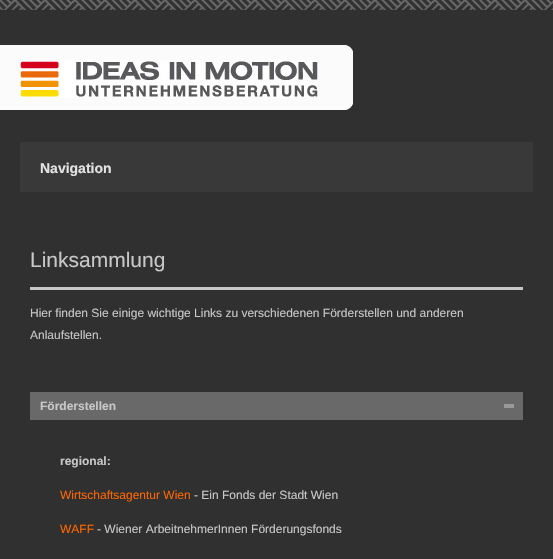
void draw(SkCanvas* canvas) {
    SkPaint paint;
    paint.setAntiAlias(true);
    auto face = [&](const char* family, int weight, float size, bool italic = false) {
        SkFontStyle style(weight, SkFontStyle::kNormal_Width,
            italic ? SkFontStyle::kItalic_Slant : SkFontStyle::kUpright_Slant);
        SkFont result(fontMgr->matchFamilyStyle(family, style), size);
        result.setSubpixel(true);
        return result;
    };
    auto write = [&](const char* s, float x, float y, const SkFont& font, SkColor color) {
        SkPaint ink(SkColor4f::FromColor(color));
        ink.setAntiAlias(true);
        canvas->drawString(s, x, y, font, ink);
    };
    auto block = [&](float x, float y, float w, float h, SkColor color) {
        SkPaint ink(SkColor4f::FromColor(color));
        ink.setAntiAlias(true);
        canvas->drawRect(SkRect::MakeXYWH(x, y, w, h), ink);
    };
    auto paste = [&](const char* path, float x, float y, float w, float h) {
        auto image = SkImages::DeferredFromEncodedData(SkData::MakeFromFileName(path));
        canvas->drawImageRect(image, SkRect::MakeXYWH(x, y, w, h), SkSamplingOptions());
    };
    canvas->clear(SK_ColorWHITE);
    paste("pic1.png", 0, 0, 553, 10);
    paint.setColor(SkColorSetARGB(26, 0, 0, 0));
    paint.setMaskFilter(SkMaskFilter::MakeBlur(kNormal_SkBlurStyle, 1));
    canvas->drawRect(SkRect::MakeXYWH(-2, 8, 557, 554), paint);
    paint.setMaskFilter(nullptr);
    block(0, 10, 553, 549, SkColorSetRGB(48, 48, 48));
    paste("pic2.png", 0, 45, 353, 65);
    block(20, 142, 513, 50, SkColorSetRGB(57, 57, 57));
    auto kFont1 = face("Liberation Sans", 700, 14);
    write("Navigation", 40, 173, kFont1, SkColorSetRGB(227, 227, 227));
    block(30, 287, 493, 3, SkColorSetRGB(199, 199, 199));
    auto kFont2 = face("Liberation Sans", 400, 21);
    write("Linksammlung", 30, 267, kFont2, SkColorSetRGB(199, 199, 199));
    auto kFont3 = face("Liberation Sans", 400, 12);
    write("Hier finden Sie einige wichtige Links zu verschiedenen Förderstellen und anderen", 30, 317, kFont3, SkColorSetRGB(199, 199, 199));
    write("Anlaufstellen.", 30, 339, kFont3, SkColorSetRGB(199, 199, 199));
    block(30, 392, 493, 28, SkColorSetRGB(105, 105, 105));
    block(504, 404, 10, 4, SkColorSetRGB(153, 153, 153));
    auto kFont4 = face("Liberation Sans", 700, 12);
    write("Förderstellen", 40, 410, kFont4, SkColorSetRGB(199, 199, 199));
    write("regional:", 60, 465, kFont4, SkColorSetRGB(199, 199, 199));
    write("Wirtschaftsagentur Wien", 60, 499, kFont3, SkColorSetRGB(255, 102, 0));
    write("- Ein Fonds der Stadt Wien", 194, 499, kFont3, SkColorSetRGB(199, 199, 199));
    write("WAFF", 60, 533, kFont3, SkColorSetRGB(255, 102, 0));
    write("- Wiener ArbeitnehmerInnen Förderungsfonds", 97, 533, kFont3, SkColorSetRGB(199, 199, 199));
}
